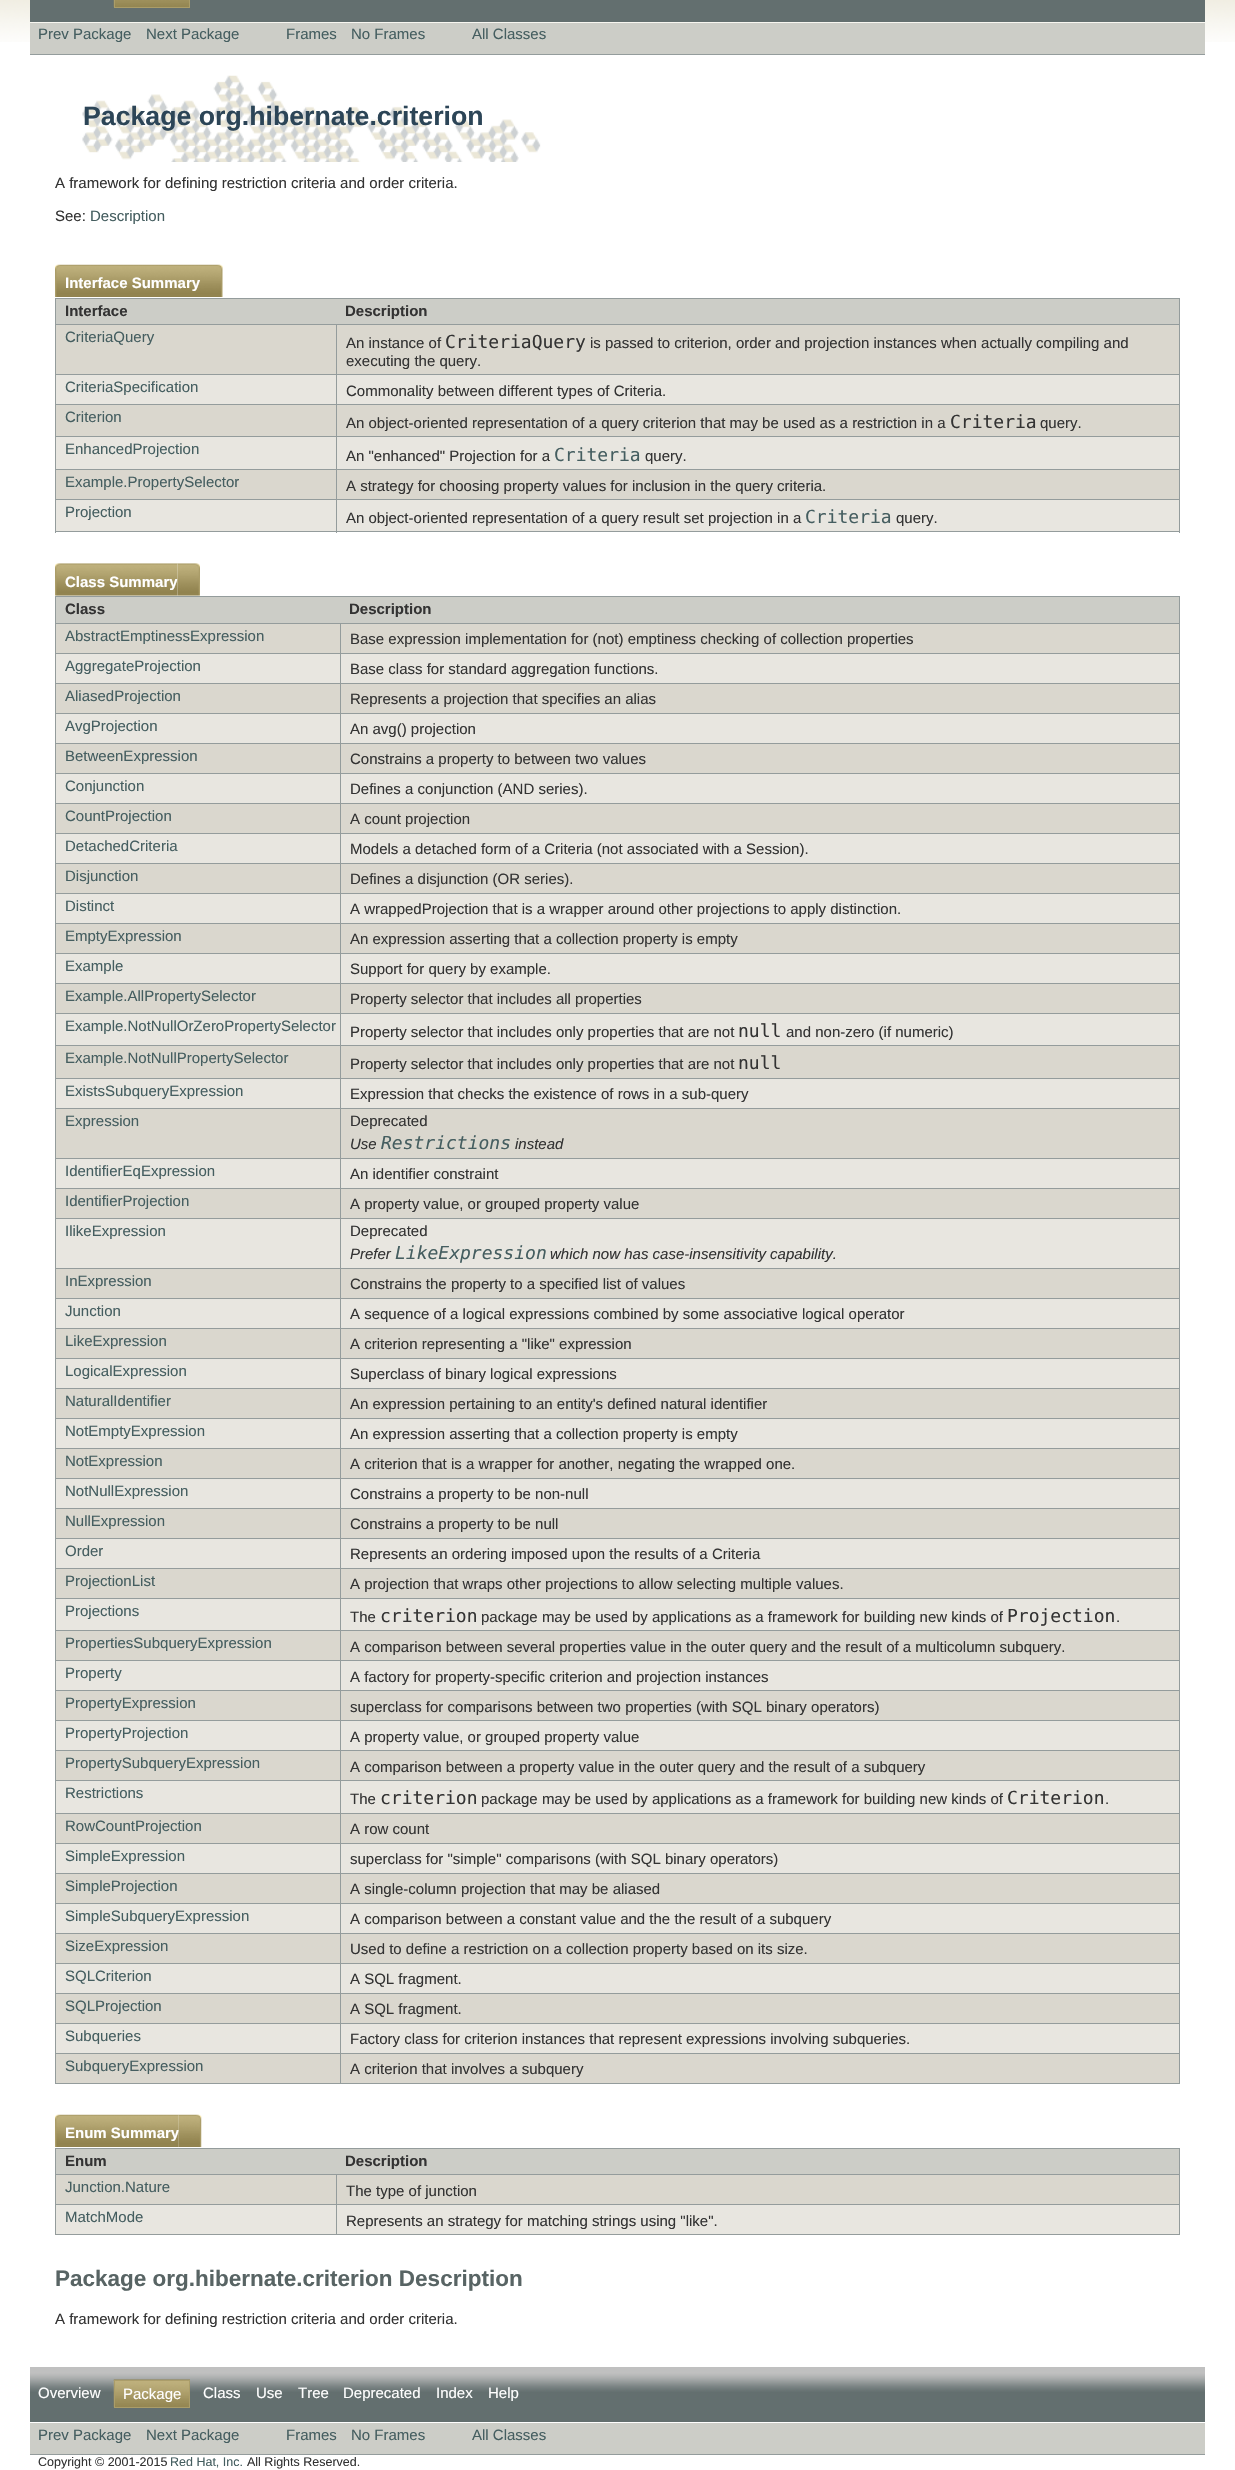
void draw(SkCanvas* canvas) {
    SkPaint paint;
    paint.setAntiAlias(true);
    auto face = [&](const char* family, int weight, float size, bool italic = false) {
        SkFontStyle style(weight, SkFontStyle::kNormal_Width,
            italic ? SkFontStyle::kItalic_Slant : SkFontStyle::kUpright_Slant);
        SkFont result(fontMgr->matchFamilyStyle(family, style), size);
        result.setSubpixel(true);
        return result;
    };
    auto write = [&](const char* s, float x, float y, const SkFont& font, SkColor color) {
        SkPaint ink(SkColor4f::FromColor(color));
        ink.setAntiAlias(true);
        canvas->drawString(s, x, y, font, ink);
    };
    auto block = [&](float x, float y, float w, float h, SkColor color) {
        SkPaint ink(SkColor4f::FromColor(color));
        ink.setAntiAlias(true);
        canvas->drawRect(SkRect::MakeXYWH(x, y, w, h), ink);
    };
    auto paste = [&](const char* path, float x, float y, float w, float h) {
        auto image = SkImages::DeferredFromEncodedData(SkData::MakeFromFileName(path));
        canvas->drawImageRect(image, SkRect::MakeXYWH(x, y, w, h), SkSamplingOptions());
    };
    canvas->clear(SK_ColorWHITE);
    paste("pic1.png", 0, 0, 1235, 42);
    block(30, 0, 1175, 22, SkColorSetRGB(99, 111, 111));
    paste("pic2.png", 113, 0, 76, 7);
    paint.setStyle(SkPaint::kStroke_Style);
    paint.setStrokeWidth(1);
    paint.setColor(SkColorSetRGB(171, 157, 105));
    canvas->drawRect(SkRect::MakeXYWH(114.5f, -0.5f, 75, 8), paint);
    block(30, 23, 1175, 31, SkColorSetRGB(204, 205, 199));
    block(30, 54, 1175, 1, SkColorSetRGB(148, 156, 156));
    auto kFont1 = face("Liberation Sans", 400, 15);
    write("Prev Package", 38, 39, kFont1, SkColorSetRGB(69, 94, 96));
    write("Next Package", 146, 39, kFont1, SkColorSetRGB(69, 94, 96));
    write("Frames", 286, 39, kFont1, SkColorSetRGB(69, 94, 96));
    write("No Frames", 351, 39, kFont1, SkColorSetRGB(69, 94, 96));
    write("All Classes", 472, 39, kFont1, SkColorSetRGB(69, 94, 96));
    paste("pic3.png", 82, 75, 459, 87);
    auto kFont2 = face("Liberation Sans", 700, 26.7f);
    write("Package org.hibernate.criterion", 83, 125, kFont2, SkColorSetRGB(44, 69, 87));
    write("A framework for defining restriction criteria and order criteria.", 55, 188, kFont1, SkColorSetRGB(51, 51, 51));
    write("See:", 55, 221, kFont1, SkColorSetRGB(51, 51, 51));
    write("Description", 90, 221, kFont1, SkColorSetRGB(69, 94, 96));
    block(55, 531, 1125, 1, SkColorSetRGB(148, 156, 156));
    paste("pic4.png", 55, 264, 145, 33);
    auto kFont3 = face("Liberation Sans", 700, 15);
    write("Interface Summary", 65, 288, kFont3, SK_ColorWHITE);
    paste("pic5.png", 200, 264, 23, 33);
    block(56, 299, 1123, 25, SkColorSetRGB(204, 205, 199));
    block(55, 298, 1125, 1, SkColorSetRGB(148, 156, 156));
    block(336, 324, 844, 1, SkColorSetRGB(148, 156, 156));
    block(56, 325, 1123, 49, SkColorSetRGB(218, 215, 206));
    block(336, 374, 844, 1, SkColorSetRGB(148, 156, 156));
    block(56, 375, 1123, 29, SkColorSetRGB(232, 230, 224));
    block(336, 404, 844, 1, SkColorSetRGB(148, 156, 156));
    block(56, 405, 1123, 31, SkColorSetRGB(218, 215, 206));
    block(56, 437, 1123, 32, SkColorSetRGB(232, 230, 224));
    block(336, 436, 844, 1, SkColorSetRGB(148, 156, 156));
    block(336, 469, 844, 1, SkColorSetRGB(148, 156, 156));
    block(56, 470, 1123, 29, SkColorSetRGB(218, 215, 206));
    block(336, 499, 844, 1, SkColorSetRGB(148, 156, 156));
    block(56, 500, 1123, 31, SkColorSetRGB(232, 230, 224));
    block(336, 499, 1, 34, SkColorSetRGB(148, 156, 156));
    block(55, 499, 283, 1, SkColorSetRGB(148, 156, 156));
    block(336, 469, 1, 31, SkColorSetRGB(148, 156, 156));
    block(55, 469, 283, 1, SkColorSetRGB(148, 156, 156));
    block(336, 436, 1, 34, SkColorSetRGB(148, 156, 156));
    block(55, 436, 283, 1, SkColorSetRGB(148, 156, 156));
    block(336, 404, 1, 34, SkColorSetRGB(148, 156, 156));
    block(55, 404, 283, 1, SkColorSetRGB(148, 156, 156));
    block(336, 374, 1, 31, SkColorSetRGB(148, 156, 156));
    block(55, 374, 283, 1, SkColorSetRGB(148, 156, 156));
    block(336, 324, 1, 51, SkColorSetRGB(148, 156, 156));
    block(55, 324, 283, 1, SkColorSetRGB(148, 156, 156));
    block(55, 499, 1, 34, SkColorSetRGB(148, 156, 156));
    block(55, 469, 1, 31, SkColorSetRGB(148, 156, 156));
    block(55, 436, 1, 34, SkColorSetRGB(148, 156, 156));
    block(55, 404, 1, 34, SkColorSetRGB(148, 156, 156));
    block(55, 374, 1, 31, SkColorSetRGB(148, 156, 156));
    block(55, 324, 1, 51, SkColorSetRGB(148, 156, 156));
    block(55, 298, 1, 27, SkColorSetRGB(148, 156, 156));
    write("Interface", 65, 316, kFont3, SkColorSetRGB(51, 51, 51));
    block(1179, 499, 1, 34, SkColorSetRGB(148, 156, 156));
    block(1179, 469, 1, 31, SkColorSetRGB(148, 156, 156));
    block(1179, 436, 1, 34, SkColorSetRGB(148, 156, 156));
    block(1179, 404, 1, 34, SkColorSetRGB(148, 156, 156));
    block(1179, 374, 1, 31, SkColorSetRGB(148, 156, 156));
    block(1179, 324, 1, 51, SkColorSetRGB(148, 156, 156));
    block(1179, 298, 1, 27, SkColorSetRGB(148, 156, 156));
    write("Description", 345, 316, kFont3, SkColorSetRGB(51, 51, 51));
    write("CriteriaQuery", 65, 342, kFont1, SkColorSetRGB(69, 94, 96));
    write("An instance of", 346, 348, kFont1, SkColorSetRGB(51, 51, 51));
    auto kFont4 = face("DejaVu Sans Mono", 400, 18);
    write("CriteriaQuery", 445, 348, kFont4, SkColorSetRGB(51, 51, 51));
    write("is passed to criterion, order and projection instances when actually compiling and", 590, 348, kFont1, SkColorSetRGB(51, 51, 51));
    write("executing the query.", 346, 366, kFont1, SkColorSetRGB(51, 51, 51));
    write("CriteriaSpecification", 65, 392, kFont1, SkColorSetRGB(69, 94, 96));
    write("Commonality between different types of Criteria.", 346, 396, kFont1, SkColorSetRGB(51, 51, 51));
    write("Criterion", 65, 422, kFont1, SkColorSetRGB(69, 94, 96));
    write("An object-oriented representation of a query criterion that may be used as a restriction in a", 346, 428, kFont1, SkColorSetRGB(51, 51, 51));
    write("Criteria", 950, 428, kFont4, SkColorSetRGB(51, 51, 51));
    write("query.", 1040, 428, kFont1, SkColorSetRGB(51, 51, 51));
    write("EnhancedProjection", 65, 454, kFont1, SkColorSetRGB(69, 94, 96));
    write("An \"enhanced\" Projection for a", 346, 461, kFont1, SkColorSetRGB(51, 51, 51));
    write("Criteria", 554, 461, kFont4, SkColorSetRGB(69, 94, 96));
    write("query.", 645, 461, kFont1, SkColorSetRGB(51, 51, 51));
    write("Example.PropertySelector", 65, 487, kFont1, SkColorSetRGB(69, 94, 96));
    write("A strategy for choosing property values for inclusion in the query criteria.", 346, 491, kFont1, SkColorSetRGB(51, 51, 51));
    write("Projection", 65, 517, kFont1, SkColorSetRGB(69, 94, 96));
    write("An object-oriented representation of a query result set projection in a", 346, 523, kFont1, SkColorSetRGB(51, 51, 51));
    write("Criteria", 805, 523, kFont4, SkColorSetRGB(69, 94, 96));
    write("query.", 896, 523, kFont1, SkColorSetRGB(51, 51, 51));
    block(55, 2083, 1125, 1, SkColorSetRGB(148, 156, 156));
    paste("pic6.png", 55, 563, 123, 33);
    write("Class Summary", 65, 587, kFont3, SK_ColorWHITE);
    paste("pic7.png", 177, 563, 23, 33);
    block(56, 597, 1123, 26, SkColorSetRGB(204, 205, 199));
    block(55, 596, 1125, 1, SkColorSetRGB(148, 156, 156));
    block(340, 623, 840, 1, SkColorSetRGB(148, 156, 156));
    block(56, 624, 1123, 29, SkColorSetRGB(218, 215, 206));
    block(340, 653, 840, 1, SkColorSetRGB(148, 156, 156));
    block(56, 654, 1123, 29, SkColorSetRGB(232, 230, 224));
    block(340, 683, 840, 1, SkColorSetRGB(148, 156, 156));
    block(56, 684, 1123, 29, SkColorSetRGB(218, 215, 206));
    block(340, 713, 840, 1, SkColorSetRGB(148, 156, 156));
    block(56, 714, 1123, 29, SkColorSetRGB(232, 230, 224));
    block(340, 743, 840, 1, SkColorSetRGB(148, 156, 156));
    block(56, 744, 1123, 29, SkColorSetRGB(218, 215, 206));
    block(340, 773, 840, 1, SkColorSetRGB(148, 156, 156));
    block(56, 774, 1123, 29, SkColorSetRGB(232, 230, 224));
    block(340, 803, 840, 1, SkColorSetRGB(148, 156, 156));
    block(56, 804, 1123, 29, SkColorSetRGB(218, 215, 206));
    block(340, 833, 840, 1, SkColorSetRGB(148, 156, 156));
    block(56, 834, 1123, 29, SkColorSetRGB(232, 230, 224));
    block(340, 863, 840, 1, SkColorSetRGB(148, 156, 156));
    block(56, 864, 1123, 29, SkColorSetRGB(218, 215, 206));
    block(340, 893, 840, 1, SkColorSetRGB(148, 156, 156));
    block(56, 894, 1123, 29, SkColorSetRGB(232, 230, 224));
    block(340, 923, 840, 1, SkColorSetRGB(148, 156, 156));
    block(56, 924, 1123, 29, SkColorSetRGB(218, 215, 206));
    block(340, 953, 840, 1, SkColorSetRGB(148, 156, 156));
    block(56, 954, 1123, 29, SkColorSetRGB(232, 230, 224));
    block(340, 983, 840, 1, SkColorSetRGB(148, 156, 156));
    block(56, 984, 1123, 29, SkColorSetRGB(218, 215, 206));
    block(340, 1013, 840, 1, SkColorSetRGB(148, 156, 156));
    block(56, 1014, 1123, 31, SkColorSetRGB(232, 230, 224));
    block(340, 1045, 840, 1, SkColorSetRGB(148, 156, 156));
    block(56, 1046, 1123, 32, SkColorSetRGB(218, 215, 206));
    block(340, 1078, 840, 1, SkColorSetRGB(148, 156, 156));
    block(56, 1079, 1123, 29, SkColorSetRGB(232, 230, 224));
    block(340, 1108, 840, 1, SkColorSetRGB(148, 156, 156));
    block(56, 1109, 1123, 49, SkColorSetRGB(218, 215, 206));
    block(340, 1158, 840, 1, SkColorSetRGB(148, 156, 156));
    block(56, 1159, 1123, 29, SkColorSetRGB(232, 230, 224));
    block(340, 1188, 840, 1, SkColorSetRGB(148, 156, 156));
    block(56, 1189, 1123, 29, SkColorSetRGB(218, 215, 206));
    block(340, 1218, 840, 1, SkColorSetRGB(148, 156, 156));
    block(56, 1219, 1123, 49, SkColorSetRGB(232, 230, 224));
    block(340, 1268, 840, 1, SkColorSetRGB(148, 156, 156));
    block(56, 1269, 1123, 29, SkColorSetRGB(218, 215, 206));
    block(340, 1298, 840, 1, SkColorSetRGB(148, 156, 156));
    block(56, 1299, 1123, 29, SkColorSetRGB(232, 230, 224));
    block(340, 1328, 840, 1, SkColorSetRGB(148, 156, 156));
    block(56, 1329, 1123, 29, SkColorSetRGB(218, 215, 206));
    block(340, 1358, 840, 1, SkColorSetRGB(148, 156, 156));
    block(56, 1359, 1123, 29, SkColorSetRGB(232, 230, 224));
    block(340, 1388, 840, 1, SkColorSetRGB(148, 156, 156));
    block(56, 1389, 1123, 29, SkColorSetRGB(218, 215, 206));
    block(340, 1418, 840, 1, SkColorSetRGB(148, 156, 156));
    block(56, 1419, 1123, 29, SkColorSetRGB(232, 230, 224));
    block(340, 1448, 840, 1, SkColorSetRGB(148, 156, 156));
    block(56, 1449, 1123, 29, SkColorSetRGB(218, 215, 206));
    block(340, 1478, 840, 1, SkColorSetRGB(148, 156, 156));
    block(56, 1479, 1123, 29, SkColorSetRGB(232, 230, 224));
    block(340, 1508, 840, 1, SkColorSetRGB(148, 156, 156));
    block(56, 1509, 1123, 29, SkColorSetRGB(218, 215, 206));
    block(340, 1538, 840, 1, SkColorSetRGB(148, 156, 156));
    block(56, 1539, 1123, 29, SkColorSetRGB(232, 230, 224));
    block(340, 1568, 840, 1, SkColorSetRGB(148, 156, 156));
    block(56, 1569, 1123, 29, SkColorSetRGB(218, 215, 206));
    block(340, 1598, 840, 1, SkColorSetRGB(148, 156, 156));
    block(56, 1599, 1123, 31, SkColorSetRGB(232, 230, 224));
    block(340, 1630, 840, 1, SkColorSetRGB(148, 156, 156));
    block(56, 1631, 1123, 29, SkColorSetRGB(218, 215, 206));
    block(340, 1660, 840, 1, SkColorSetRGB(148, 156, 156));
    block(56, 1661, 1123, 29, SkColorSetRGB(232, 230, 224));
    block(340, 1690, 840, 1, SkColorSetRGB(148, 156, 156));
    block(56, 1691, 1123, 29, SkColorSetRGB(218, 215, 206));
    block(340, 1720, 840, 1, SkColorSetRGB(148, 156, 156));
    block(56, 1721, 1123, 29, SkColorSetRGB(232, 230, 224));
    block(340, 1750, 840, 1, SkColorSetRGB(148, 156, 156));
    block(56, 1751, 1123, 29, SkColorSetRGB(218, 215, 206));
    block(340, 1780, 840, 1, SkColorSetRGB(148, 156, 156));
    block(56, 1781, 1123, 32, SkColorSetRGB(232, 230, 224));
    block(340, 1813, 840, 1, SkColorSetRGB(148, 156, 156));
    block(56, 1814, 1123, 29, SkColorSetRGB(218, 215, 206));
    block(340, 1843, 840, 1, SkColorSetRGB(148, 156, 156));
    block(56, 1844, 1123, 29, SkColorSetRGB(232, 230, 224));
    block(340, 1873, 840, 1, SkColorSetRGB(148, 156, 156));
    block(56, 1874, 1123, 29, SkColorSetRGB(218, 215, 206));
    block(340, 1903, 840, 1, SkColorSetRGB(148, 156, 156));
    block(56, 1904, 1123, 29, SkColorSetRGB(232, 230, 224));
    block(340, 1933, 840, 1, SkColorSetRGB(148, 156, 156));
    block(56, 1934, 1123, 29, SkColorSetRGB(218, 215, 206));
    block(340, 1963, 840, 1, SkColorSetRGB(148, 156, 156));
    block(56, 1964, 1123, 29, SkColorSetRGB(232, 230, 224));
    block(340, 1993, 840, 1, SkColorSetRGB(148, 156, 156));
    block(56, 1994, 1123, 29, SkColorSetRGB(218, 215, 206));
    block(340, 2023, 840, 1, SkColorSetRGB(148, 156, 156));
    block(56, 2024, 1123, 29, SkColorSetRGB(232, 230, 224));
    block(340, 2053, 840, 1, SkColorSetRGB(148, 156, 156));
    block(56, 2054, 1123, 29, SkColorSetRGB(218, 215, 206));
    block(340, 2053, 1, 31, SkColorSetRGB(148, 156, 156));
    block(55, 2053, 286, 1, SkColorSetRGB(148, 156, 156));
    block(340, 2023, 1, 31, SkColorSetRGB(148, 156, 156));
    block(55, 2023, 286, 1, SkColorSetRGB(148, 156, 156));
    block(340, 1993, 1, 31, SkColorSetRGB(148, 156, 156));
    block(55, 1993, 286, 1, SkColorSetRGB(148, 156, 156));
    block(340, 1963, 1, 31, SkColorSetRGB(148, 156, 156));
    block(55, 1963, 286, 1, SkColorSetRGB(148, 156, 156));
    block(340, 1933, 1, 31, SkColorSetRGB(148, 156, 156));
    block(55, 1933, 286, 1, SkColorSetRGB(148, 156, 156));
    block(340, 1903, 1, 31, SkColorSetRGB(148, 156, 156));
    block(55, 1903, 286, 1, SkColorSetRGB(148, 156, 156));
    block(340, 1873, 1, 31, SkColorSetRGB(148, 156, 156));
    block(55, 1873, 286, 1, SkColorSetRGB(148, 156, 156));
    block(340, 1843, 1, 31, SkColorSetRGB(148, 156, 156));
    block(55, 1843, 286, 1, SkColorSetRGB(148, 156, 156));
    block(340, 1813, 1, 31, SkColorSetRGB(148, 156, 156));
    block(55, 1813, 286, 1, SkColorSetRGB(148, 156, 156));
    block(340, 1780, 1, 34, SkColorSetRGB(148, 156, 156));
    block(55, 1780, 286, 1, SkColorSetRGB(148, 156, 156));
    block(340, 1750, 1, 31, SkColorSetRGB(148, 156, 156));
    block(55, 1750, 286, 1, SkColorSetRGB(148, 156, 156));
    block(340, 1720, 1, 31, SkColorSetRGB(148, 156, 156));
    block(55, 1720, 286, 1, SkColorSetRGB(148, 156, 156));
    block(340, 1690, 1, 31, SkColorSetRGB(148, 156, 156));
    block(55, 1690, 286, 1, SkColorSetRGB(148, 156, 156));
    block(340, 1660, 1, 31, SkColorSetRGB(148, 156, 156));
    block(55, 1660, 286, 1, SkColorSetRGB(148, 156, 156));
    block(340, 1630, 1, 31, SkColorSetRGB(148, 156, 156));
    block(55, 1630, 286, 1, SkColorSetRGB(148, 156, 156));
    block(340, 1598, 1, 33, SkColorSetRGB(148, 156, 156));
    block(55, 1598, 286, 1, SkColorSetRGB(148, 156, 156));
    block(340, 1568, 1, 31, SkColorSetRGB(148, 156, 156));
    block(55, 1568, 286, 1, SkColorSetRGB(148, 156, 156));
    block(340, 1538, 1, 31, SkColorSetRGB(148, 156, 156));
    block(55, 1538, 286, 1, SkColorSetRGB(148, 156, 156));
    block(340, 1508, 1, 31, SkColorSetRGB(148, 156, 156));
    block(55, 1508, 286, 1, SkColorSetRGB(148, 156, 156));
    block(340, 1478, 1, 31, SkColorSetRGB(148, 156, 156));
    block(55, 1478, 286, 1, SkColorSetRGB(148, 156, 156));
    block(340, 1448, 1, 31, SkColorSetRGB(148, 156, 156));
    block(55, 1448, 286, 1, SkColorSetRGB(148, 156, 156));
    block(340, 1418, 1, 31, SkColorSetRGB(148, 156, 156));
    block(55, 1418, 286, 1, SkColorSetRGB(148, 156, 156));
    block(340, 1388, 1, 31, SkColorSetRGB(148, 156, 156));
    block(55, 1388, 286, 1, SkColorSetRGB(148, 156, 156));
    block(340, 1358, 1, 31, SkColorSetRGB(148, 156, 156));
    block(55, 1358, 286, 1, SkColorSetRGB(148, 156, 156));
    block(340, 1328, 1, 31, SkColorSetRGB(148, 156, 156));
    block(55, 1328, 286, 1, SkColorSetRGB(148, 156, 156));
    block(340, 1298, 1, 31, SkColorSetRGB(148, 156, 156));
    block(55, 1298, 286, 1, SkColorSetRGB(148, 156, 156));
    block(340, 1268, 1, 31, SkColorSetRGB(148, 156, 156));
    block(55, 1268, 286, 1, SkColorSetRGB(148, 156, 156));
    block(340, 1218, 1, 51, SkColorSetRGB(148, 156, 156));
    block(55, 1218, 286, 1, SkColorSetRGB(148, 156, 156));
    block(340, 1188, 1, 31, SkColorSetRGB(148, 156, 156));
    block(55, 1188, 286, 1, SkColorSetRGB(148, 156, 156));
    block(340, 1158, 1, 31, SkColorSetRGB(148, 156, 156));
    block(55, 1158, 286, 1, SkColorSetRGB(148, 156, 156));
    block(340, 1108, 1, 51, SkColorSetRGB(148, 156, 156));
    block(55, 1108, 286, 1, SkColorSetRGB(148, 156, 156));
    block(340, 1078, 1, 31, SkColorSetRGB(148, 156, 156));
    block(55, 1078, 286, 1, SkColorSetRGB(148, 156, 156));
    block(340, 1045, 1, 34, SkColorSetRGB(148, 156, 156));
    block(55, 1045, 286, 1, SkColorSetRGB(148, 156, 156));
    block(340, 1013, 1, 33, SkColorSetRGB(148, 156, 156));
    block(55, 1013, 286, 1, SkColorSetRGB(148, 156, 156));
    block(340, 983, 1, 31, SkColorSetRGB(148, 156, 156));
    block(55, 983, 286, 1, SkColorSetRGB(148, 156, 156));
    block(340, 953, 1, 31, SkColorSetRGB(148, 156, 156));
    block(55, 953, 286, 1, SkColorSetRGB(148, 156, 156));
    block(340, 923, 1, 31, SkColorSetRGB(148, 156, 156));
    block(55, 923, 286, 1, SkColorSetRGB(148, 156, 156));
    block(340, 893, 1, 31, SkColorSetRGB(148, 156, 156));
    block(55, 893, 286, 1, SkColorSetRGB(148, 156, 156));
    block(340, 863, 1, 31, SkColorSetRGB(148, 156, 156));
    block(55, 863, 286, 1, SkColorSetRGB(148, 156, 156));
    block(340, 833, 1, 31, SkColorSetRGB(148, 156, 156));
    block(55, 833, 286, 1, SkColorSetRGB(148, 156, 156));
    block(340, 803, 1, 31, SkColorSetRGB(148, 156, 156));
    block(55, 803, 286, 1, SkColorSetRGB(148, 156, 156));
    block(340, 773, 1, 31, SkColorSetRGB(148, 156, 156));
    block(55, 773, 286, 1, SkColorSetRGB(148, 156, 156));
    block(340, 743, 1, 31, SkColorSetRGB(148, 156, 156));
    block(55, 743, 286, 1, SkColorSetRGB(148, 156, 156));
    block(340, 713, 1, 31, SkColorSetRGB(148, 156, 156));
    block(55, 713, 286, 1, SkColorSetRGB(148, 156, 156));
    block(340, 683, 1, 31, SkColorSetRGB(148, 156, 156));
    block(55, 683, 286, 1, SkColorSetRGB(148, 156, 156));
    block(340, 653, 1, 31, SkColorSetRGB(148, 156, 156));
    block(55, 653, 286, 1, SkColorSetRGB(148, 156, 156));
    block(340, 623, 1, 31, SkColorSetRGB(148, 156, 156));
    block(55, 623, 286, 1, SkColorSetRGB(148, 156, 156));
    block(55, 2053, 1, 31, SkColorSetRGB(148, 156, 156));
    block(55, 2023, 1, 31, SkColorSetRGB(148, 156, 156));
    block(55, 1993, 1, 31, SkColorSetRGB(148, 156, 156));
    block(55, 1963, 1, 31, SkColorSetRGB(148, 156, 156));
    block(55, 1933, 1, 31, SkColorSetRGB(148, 156, 156));
    block(55, 1903, 1, 31, SkColorSetRGB(148, 156, 156));
    block(55, 1873, 1, 31, SkColorSetRGB(148, 156, 156));
    block(55, 1843, 1, 31, SkColorSetRGB(148, 156, 156));
    block(55, 1813, 1, 31, SkColorSetRGB(148, 156, 156));
    block(55, 1780, 1, 34, SkColorSetRGB(148, 156, 156));
    block(55, 1750, 1, 31, SkColorSetRGB(148, 156, 156));
    block(55, 1720, 1, 31, SkColorSetRGB(148, 156, 156));
    block(55, 1690, 1, 31, SkColorSetRGB(148, 156, 156));
    block(55, 1660, 1, 31, SkColorSetRGB(148, 156, 156));
    block(55, 1630, 1, 31, SkColorSetRGB(148, 156, 156));
    block(55, 1598, 1, 33, SkColorSetRGB(148, 156, 156));
    block(55, 1568, 1, 31, SkColorSetRGB(148, 156, 156));
    block(55, 1538, 1, 31, SkColorSetRGB(148, 156, 156));
    block(55, 1508, 1, 31, SkColorSetRGB(148, 156, 156));
    block(55, 1478, 1, 31, SkColorSetRGB(148, 156, 156));
    block(55, 1448, 1, 31, SkColorSetRGB(148, 156, 156));
    block(55, 1418, 1, 31, SkColorSetRGB(148, 156, 156));
    block(55, 1388, 1, 31, SkColorSetRGB(148, 156, 156));
    block(55, 1358, 1, 31, SkColorSetRGB(148, 156, 156));
    block(55, 1328, 1, 31, SkColorSetRGB(148, 156, 156));
    block(55, 1298, 1, 31, SkColorSetRGB(148, 156, 156));
    block(55, 1268, 1, 31, SkColorSetRGB(148, 156, 156));
    block(55, 1218, 1, 51, SkColorSetRGB(148, 156, 156));
    block(55, 1188, 1, 31, SkColorSetRGB(148, 156, 156));
    block(55, 1158, 1, 31, SkColorSetRGB(148, 156, 156));
    block(55, 1108, 1, 51, SkColorSetRGB(148, 156, 156));
    block(55, 1078, 1, 31, SkColorSetRGB(148, 156, 156));
    block(55, 1045, 1, 34, SkColorSetRGB(148, 156, 156));
    block(55, 1013, 1, 33, SkColorSetRGB(148, 156, 156));
    block(55, 983, 1, 31, SkColorSetRGB(148, 156, 156));
    block(55, 953, 1, 31, SkColorSetRGB(148, 156, 156));
    block(55, 923, 1, 31, SkColorSetRGB(148, 156, 156));
    block(55, 893, 1, 31, SkColorSetRGB(148, 156, 156));
    block(55, 863, 1, 31, SkColorSetRGB(148, 156, 156));
    block(55, 833, 1, 31, SkColorSetRGB(148, 156, 156));
    block(55, 803, 1, 31, SkColorSetRGB(148, 156, 156));
    block(55, 773, 1, 31, SkColorSetRGB(148, 156, 156));
    block(55, 743, 1, 31, SkColorSetRGB(148, 156, 156));
    block(55, 713, 1, 31, SkColorSetRGB(148, 156, 156));
    block(55, 683, 1, 31, SkColorSetRGB(148, 156, 156));
    block(55, 653, 1, 31, SkColorSetRGB(148, 156, 156));
    block(55, 623, 1, 31, SkColorSetRGB(148, 156, 156));
    block(55, 596, 1, 28, SkColorSetRGB(148, 156, 156));
    write("Class", 65, 614, kFont3, SkColorSetRGB(51, 51, 51));
    block(1179, 2053, 1, 31, SkColorSetRGB(148, 156, 156));
    block(1179, 2023, 1, 31, SkColorSetRGB(148, 156, 156));
    block(1179, 1993, 1, 31, SkColorSetRGB(148, 156, 156));
    block(1179, 1963, 1, 31, SkColorSetRGB(148, 156, 156));
    block(1179, 1933, 1, 31, SkColorSetRGB(148, 156, 156));
    block(1179, 1903, 1, 31, SkColorSetRGB(148, 156, 156));
    block(1179, 1873, 1, 31, SkColorSetRGB(148, 156, 156));
    block(1179, 1843, 1, 31, SkColorSetRGB(148, 156, 156));
    block(1179, 1813, 1, 31, SkColorSetRGB(148, 156, 156));
    block(1179, 1780, 1, 34, SkColorSetRGB(148, 156, 156));
    block(1179, 1750, 1, 31, SkColorSetRGB(148, 156, 156));
    block(1179, 1720, 1, 31, SkColorSetRGB(148, 156, 156));
    block(1179, 1690, 1, 31, SkColorSetRGB(148, 156, 156));
    block(1179, 1660, 1, 31, SkColorSetRGB(148, 156, 156));
    block(1179, 1630, 1, 31, SkColorSetRGB(148, 156, 156));
    block(1179, 1598, 1, 33, SkColorSetRGB(148, 156, 156));
    block(1179, 1568, 1, 31, SkColorSetRGB(148, 156, 156));
    block(1179, 1538, 1, 31, SkColorSetRGB(148, 156, 156));
    block(1179, 1508, 1, 31, SkColorSetRGB(148, 156, 156));
    block(1179, 1478, 1, 31, SkColorSetRGB(148, 156, 156));
    block(1179, 1448, 1, 31, SkColorSetRGB(148, 156, 156));
    block(1179, 1418, 1, 31, SkColorSetRGB(148, 156, 156));
    block(1179, 1388, 1, 31, SkColorSetRGB(148, 156, 156));
    block(1179, 1358, 1, 31, SkColorSetRGB(148, 156, 156));
    block(1179, 1328, 1, 31, SkColorSetRGB(148, 156, 156));
    block(1179, 1298, 1, 31, SkColorSetRGB(148, 156, 156));
    block(1179, 1268, 1, 31, SkColorSetRGB(148, 156, 156));
    block(1179, 1218, 1, 51, SkColorSetRGB(148, 156, 156));
    block(1179, 1188, 1, 31, SkColorSetRGB(148, 156, 156));
    block(1179, 1158, 1, 31, SkColorSetRGB(148, 156, 156));
    block(1179, 1108, 1, 51, SkColorSetRGB(148, 156, 156));
    block(1179, 1078, 1, 31, SkColorSetRGB(148, 156, 156));
    block(1179, 1045, 1, 34, SkColorSetRGB(148, 156, 156));
    block(1179, 1013, 1, 33, SkColorSetRGB(148, 156, 156));
    block(1179, 983, 1, 31, SkColorSetRGB(148, 156, 156));
    block(1179, 953, 1, 31, SkColorSetRGB(148, 156, 156));
    block(1179, 923, 1, 31, SkColorSetRGB(148, 156, 156));
    block(1179, 893, 1, 31, SkColorSetRGB(148, 156, 156));
    block(1179, 863, 1, 31, SkColorSetRGB(148, 156, 156));
    block(1179, 833, 1, 31, SkColorSetRGB(148, 156, 156));
    block(1179, 803, 1, 31, SkColorSetRGB(148, 156, 156));
    block(1179, 773, 1, 31, SkColorSetRGB(148, 156, 156));
    block(1179, 743, 1, 31, SkColorSetRGB(148, 156, 156));
    block(1179, 713, 1, 31, SkColorSetRGB(148, 156, 156));
    block(1179, 683, 1, 31, SkColorSetRGB(148, 156, 156));
    block(1179, 653, 1, 31, SkColorSetRGB(148, 156, 156));
    block(1179, 623, 1, 31, SkColorSetRGB(148, 156, 156));
    block(1179, 596, 1, 28, SkColorSetRGB(148, 156, 156));
    write("Description", 349, 614, kFont3, SkColorSetRGB(51, 51, 51));
    write("AbstractEmptinessExpression", 65, 641, kFont1, SkColorSetRGB(69, 94, 96));
    write("Base expression implementation for (not) emptiness checking of collection properties", 350, 644, kFont1, SkColorSetRGB(51, 51, 51));
    write("AggregateProjection", 65, 671, kFont1, SkColorSetRGB(69, 94, 96));
    write("Base class for standard aggregation functions.", 350, 674, kFont1, SkColorSetRGB(51, 51, 51));
    write("AliasedProjection", 65, 701, kFont1, SkColorSetRGB(69, 94, 96));
    write("Represents a projection that specifies an alias", 350, 704, kFont1, SkColorSetRGB(51, 51, 51));
    write("AvgProjection", 65, 731, kFont1, SkColorSetRGB(69, 94, 96));
    write("An avg() projection", 350, 734, kFont1, SkColorSetRGB(51, 51, 51));
    write("BetweenExpression", 65, 761, kFont1, SkColorSetRGB(69, 94, 96));
    write("Constrains a property to between two values", 350, 764, kFont1, SkColorSetRGB(51, 51, 51));
    write("Conjunction", 65, 791, kFont1, SkColorSetRGB(69, 94, 96));
    write("Defines a conjunction (AND series).", 350, 794, kFont1, SkColorSetRGB(51, 51, 51));
    write("CountProjection", 65, 821, kFont1, SkColorSetRGB(69, 94, 96));
    write("A count projection", 350, 824, kFont1, SkColorSetRGB(51, 51, 51));
    write("DetachedCriteria", 65, 851, kFont1, SkColorSetRGB(69, 94, 96));
    write("Models a detached form of a Criteria (not associated with a Session).", 350, 854, kFont1, SkColorSetRGB(51, 51, 51));
    write("Disjunction", 65, 881, kFont1, SkColorSetRGB(69, 94, 96));
    write("Defines a disjunction (OR series).", 350, 884, kFont1, SkColorSetRGB(51, 51, 51));
    write("Distinct", 65, 911, kFont1, SkColorSetRGB(69, 94, 96));
    write("A wrappedProjection that is a wrapper around other projections to apply distinction.", 350, 914, kFont1, SkColorSetRGB(51, 51, 51));
    write("EmptyExpression", 65, 941, kFont1, SkColorSetRGB(69, 94, 96));
    write("An expression asserting that a collection property is empty", 350, 944, kFont1, SkColorSetRGB(51, 51, 51));
    write("Example", 65, 971, kFont1, SkColorSetRGB(69, 94, 96));
    write("Support for query by example.", 350, 974, kFont1, SkColorSetRGB(51, 51, 51));
    write("Example.AllPropertySelector", 65, 1001, kFont1, SkColorSetRGB(69, 94, 96));
    write("Property selector that includes all properties", 350, 1004, kFont1, SkColorSetRGB(51, 51, 51));
    write("Example.NotNullOrZeroPropertySelector", 65, 1031, kFont1, SkColorSetRGB(69, 94, 96));
    write("Property selector that includes only properties that are not", 350, 1037, kFont1, SkColorSetRGB(51, 51, 51));
    write("null", 738, 1037, kFont4, SkColorSetRGB(51, 51, 51));
    write("and non-zero (if numeric)", 786, 1037, kFont1, SkColorSetRGB(51, 51, 51));
    write("Example.NotNullPropertySelector", 65, 1063, kFont1, SkColorSetRGB(69, 94, 96));
    write("Property selector that includes only properties that are not", 350, 1069, kFont1, SkColorSetRGB(51, 51, 51));
    write("null", 738, 1069, kFont4, SkColorSetRGB(51, 51, 51));
    write("ExistsSubqueryExpression", 65, 1096, kFont1, SkColorSetRGB(69, 94, 96));
    write("Expression that checks the existence of rows in a sub-query", 350, 1099, kFont1, SkColorSetRGB(51, 51, 51));
    write("Expression", 65, 1126, kFont1, SkColorSetRGB(69, 94, 96));
    write("Deprecated", 350, 1126, kFont1, SkColorSetRGB(51, 51, 51));
    auto kFont5 = face("Liberation Sans", 400, 15, true);
    write("Use", 350, 1149, kFont5, SkColorSetRGB(51, 51, 51));
    auto kFont6 = face("DejaVu Sans Mono", 400, 18, true);
    write("Restrictions", 381, 1149, kFont6, SkColorSetRGB(69, 94, 96));
    write("instead", 515, 1149, kFont5, SkColorSetRGB(51, 51, 51));
    write("IdentifierEqExpression", 65, 1176, kFont1, SkColorSetRGB(69, 94, 96));
    write("An identifier constraint", 350, 1179, kFont1, SkColorSetRGB(51, 51, 51));
    write("IdentifierProjection", 65, 1206, kFont1, SkColorSetRGB(69, 94, 96));
    write("A property value, or grouped property value", 350, 1209, kFont1, SkColorSetRGB(51, 51, 51));
    write("IlikeExpression", 65, 1236, kFont1, SkColorSetRGB(69, 94, 96));
    write("Deprecated", 350, 1236, kFont1, SkColorSetRGB(51, 51, 51));
    write("Prefer", 350, 1259, kFont5, SkColorSetRGB(51, 51, 51));
    write("LikeExpression", 395, 1259, kFont6, SkColorSetRGB(69, 94, 96));
    write("which now has case-insensitivity capability.", 550, 1259, kFont5, SkColorSetRGB(51, 51, 51));
    write("InExpression", 65, 1286, kFont1, SkColorSetRGB(69, 94, 96));
    write("Constrains the property to a specified list of values", 350, 1289, kFont1, SkColorSetRGB(51, 51, 51));
    write("Junction", 65, 1316, kFont1, SkColorSetRGB(69, 94, 96));
    write("A sequence of a logical expressions combined by some associative logical operator", 350, 1319, kFont1, SkColorSetRGB(51, 51, 51));
    write("LikeExpression", 65, 1346, kFont1, SkColorSetRGB(69, 94, 96));
    write("A criterion representing a \"like\" expression", 350, 1349, kFont1, SkColorSetRGB(51, 51, 51));
    write("LogicalExpression", 65, 1376, kFont1, SkColorSetRGB(69, 94, 96));
    write("Superclass of binary logical expressions", 350, 1379, kFont1, SkColorSetRGB(51, 51, 51));
    write("NaturalIdentifier", 65, 1406, kFont1, SkColorSetRGB(69, 94, 96));
    write("An expression pertaining to an entity's defined natural identifier", 350, 1409, kFont1, SkColorSetRGB(51, 51, 51));
    write("NotEmptyExpression", 65, 1436, kFont1, SkColorSetRGB(69, 94, 96));
    write("An expression asserting that a collection property is empty", 350, 1439, kFont1, SkColorSetRGB(51, 51, 51));
    write("NotExpression", 65, 1466, kFont1, SkColorSetRGB(69, 94, 96));
    write("A criterion that is a wrapper for another, negating the wrapped one.", 350, 1469, kFont1, SkColorSetRGB(51, 51, 51));
    write("NotNullExpression", 65, 1496, kFont1, SkColorSetRGB(69, 94, 96));
    write("Constrains a property to be non-null", 350, 1499, kFont1, SkColorSetRGB(51, 51, 51));
    write("NullExpression", 65, 1526, kFont1, SkColorSetRGB(69, 94, 96));
    write("Constrains a property to be null", 350, 1529, kFont1, SkColorSetRGB(51, 51, 51));
    write("Order", 65, 1556, kFont1, SkColorSetRGB(69, 94, 96));
    write("Represents an ordering imposed upon the results of a Criteria", 350, 1559, kFont1, SkColorSetRGB(51, 51, 51));
    write("ProjectionList", 65, 1586, kFont1, SkColorSetRGB(69, 94, 96));
    write("A projection that wraps other projections to allow selecting multiple values.", 350, 1589, kFont1, SkColorSetRGB(51, 51, 51));
    write("Projections", 65, 1616, kFont1, SkColorSetRGB(69, 94, 96));
    write("The", 350, 1622, kFont1, SkColorSetRGB(51, 51, 51));
    write("criterion", 380, 1622, kFont4, SkColorSetRGB(51, 51, 51));
    write("package may be used by applications as a framework for building new kinds of", 481, 1622, kFont1, SkColorSetRGB(51, 51, 51));
    write("Projection", 1007, 1622, kFont4, SkColorSetRGB(51, 51, 51));
    write(".", 1116, 1622, kFont1, SkColorSetRGB(51, 51, 51));
    write("PropertiesSubqueryExpression", 65, 1648, kFont1, SkColorSetRGB(69, 94, 96));
    write("A comparison between several properties value in the outer query and the result of a multicolumn subquery.", 350, 1652, kFont1, SkColorSetRGB(51, 51, 51));
    write("Property", 65, 1678, kFont1, SkColorSetRGB(69, 94, 96));
    write("A factory for property-specific criterion and projection instances", 350, 1682, kFont1, SkColorSetRGB(51, 51, 51));
    write("PropertyExpression", 65, 1708, kFont1, SkColorSetRGB(69, 94, 96));
    write("superclass for comparisons between two properties (with SQL binary operators)", 350, 1712, kFont1, SkColorSetRGB(51, 51, 51));
    write("PropertyProjection", 65, 1738, kFont1, SkColorSetRGB(69, 94, 96));
    write("A property value, or grouped property value", 350, 1742, kFont1, SkColorSetRGB(51, 51, 51));
    write("PropertySubqueryExpression", 65, 1768, kFont1, SkColorSetRGB(69, 94, 96));
    write("A comparison between a property value in the outer query and the result of a subquery", 350, 1772, kFont1, SkColorSetRGB(51, 51, 51));
    write("Restrictions", 65, 1798, kFont1, SkColorSetRGB(69, 94, 96));
    write("The", 350, 1804, kFont1, SkColorSetRGB(51, 51, 51));
    write("criterion", 380, 1804, kFont4, SkColorSetRGB(51, 51, 51));
    write("package may be used by applications as a framework for building new kinds of", 481, 1804, kFont1, SkColorSetRGB(51, 51, 51));
    write("Criterion", 1007, 1804, kFont4, SkColorSetRGB(51, 51, 51));
    write(".", 1105, 1804, kFont1, SkColorSetRGB(51, 51, 51));
    write("RowCountProjection", 65, 1831, kFont1, SkColorSetRGB(69, 94, 96));
    write("A row count", 350, 1834, kFont1, SkColorSetRGB(51, 51, 51));
    write("SimpleExpression", 65, 1861, kFont1, SkColorSetRGB(69, 94, 96));
    write("superclass for \"simple\" comparisons (with SQL binary operators)", 350, 1864, kFont1, SkColorSetRGB(51, 51, 51));
    write("SimpleProjection", 65, 1891, kFont1, SkColorSetRGB(69, 94, 96));
    write("A single-column projection that may be aliased", 350, 1894, kFont1, SkColorSetRGB(51, 51, 51));
    write("SimpleSubqueryExpression", 65, 1921, kFont1, SkColorSetRGB(69, 94, 96));
    write("A comparison between a constant value and the the result of a subquery", 350, 1924, kFont1, SkColorSetRGB(51, 51, 51));
    write("SizeExpression", 65, 1951, kFont1, SkColorSetRGB(69, 94, 96));
    write("Used to define a restriction on a collection property based on its size.", 350, 1954, kFont1, SkColorSetRGB(51, 51, 51));
    write("SQLCriterion", 65, 1981, kFont1, SkColorSetRGB(69, 94, 96));
    write("A SQL fragment.", 350, 1984, kFont1, SkColorSetRGB(51, 51, 51));
    write("SQLProjection", 65, 2011, kFont1, SkColorSetRGB(69, 94, 96));
    write("A SQL fragment.", 350, 2014, kFont1, SkColorSetRGB(51, 51, 51));
    write("Subqueries", 65, 2041, kFont1, SkColorSetRGB(69, 94, 96));
    write("Factory class for criterion instances that represent expressions involving subqueries.", 350, 2044, kFont1, SkColorSetRGB(51, 51, 51));
    write("SubqueryExpression", 65, 2071, kFont1, SkColorSetRGB(69, 94, 96));
    write("A criterion that involves a subquery", 350, 2074, kFont1, SkColorSetRGB(51, 51, 51));
    block(55, 2234, 1125, 1, SkColorSetRGB(148, 156, 156));
    paste("pic8.png", 55, 2114, 124, 33);
    write("Enum Summary", 65, 2138, kFont3, SK_ColorWHITE);
    paste("pic9.png", 178, 2114, 24, 33);
    block(56, 2149, 1123, 25, SkColorSetRGB(204, 205, 199));
    block(55, 2148, 1125, 1, SkColorSetRGB(148, 156, 156));
    block(336, 2174, 844, 1, SkColorSetRGB(148, 156, 156));
    block(56, 2175, 1123, 29, SkColorSetRGB(218, 215, 206));
    block(336, 2204, 844, 1, SkColorSetRGB(148, 156, 156));
    block(56, 2205, 1123, 29, SkColorSetRGB(232, 230, 224));
    block(336, 2204, 1, 31, SkColorSetRGB(148, 156, 156));
    block(55, 2204, 283, 1, SkColorSetRGB(148, 156, 156));
    block(336, 2174, 1, 31, SkColorSetRGB(148, 156, 156));
    block(55, 2174, 283, 1, SkColorSetRGB(148, 156, 156));
    block(55, 2204, 1, 31, SkColorSetRGB(148, 156, 156));
    block(55, 2174, 1, 31, SkColorSetRGB(148, 156, 156));
    block(55, 2148, 1, 27, SkColorSetRGB(148, 156, 156));
    write("Enum", 65, 2166, kFont3, SkColorSetRGB(51, 51, 51));
    block(1179, 2204, 1, 31, SkColorSetRGB(148, 156, 156));
    block(1179, 2174, 1, 31, SkColorSetRGB(148, 156, 156));
    block(1179, 2148, 1, 27, SkColorSetRGB(148, 156, 156));
    write("Description", 345, 2166, kFont3, SkColorSetRGB(51, 51, 51));
    write("Junction.Nature", 65, 2192, kFont1, SkColorSetRGB(69, 94, 96));
    write("The type of junction", 346, 2196, kFont1, SkColorSetRGB(51, 51, 51));
    write("MatchMode", 65, 2222, kFont1, SkColorSetRGB(69, 94, 96));
    write("Represents an strategy for matching strings using \"like\".", 346, 2226, kFont1, SkColorSetRGB(51, 51, 51));
    auto kFont7 = face("Liberation Sans", 700, 22.5f);
    write("Package org.hibernate.criterion Description", 55, 2286, kFont7, SkColorSetRGB(88, 100, 100));
    write("A framework for defining restriction criteria and order criteria.", 55, 2324, kFont1, SkColorSetRGB(51, 51, 51));
    paste("pic10.png", 30, 2367, 1175, 55);
    write("Overview", 38, 2398, kFont1, SK_ColorWHITE);
    paste("pic11.png", 113, 2379, 77, 28);
    canvas->drawRect(SkRect::MakeXYWH(114.5f, 2380.5f, 75, 27), paint);
    write("Package", 123, 2399, kFont1, SK_ColorWHITE);
    write("Class", 203, 2398, kFont1, SK_ColorWHITE);
    write("Use", 256, 2398, kFont1, SK_ColorWHITE);
    write("Tree", 298, 2398, kFont1, SK_ColorWHITE);
    write("Deprecated", 343, 2398, kFont1, SK_ColorWHITE);
    write("Index", 436, 2398, kFont1, SK_ColorWHITE);
    write("Help", 488, 2398, kFont1, SK_ColorWHITE);
    block(30, 2423, 1175, 31, SkColorSetRGB(204, 205, 199));
    block(30, 2454, 1175, 1, SkColorSetRGB(148, 156, 156));
    write("Prev Package", 38, 2440, kFont1, SkColorSetRGB(69, 94, 96));
    write("Next Package", 146, 2440, kFont1, SkColorSetRGB(69, 94, 96));
    write("Frames", 286, 2440, kFont1, SkColorSetRGB(69, 94, 96));
    write("No Frames", 351, 2440, kFont1, SkColorSetRGB(69, 94, 96));
    write("All Classes", 472, 2440, kFont1, SkColorSetRGB(69, 94, 96));
    auto kFont8 = face("Liberation Sans", 400, 12.5f);
    write("Copyright © 2001-2015", 38, 2466, kFont8, SkColorSetRGB(51, 51, 51));
    write("Red Hat, Inc.", 170, 2466, kFont8, SkColorSetRGB(69, 94, 96));
    write("All Rights Reserved.", 247, 2466, kFont8, SkColorSetRGB(51, 51, 51));
}
